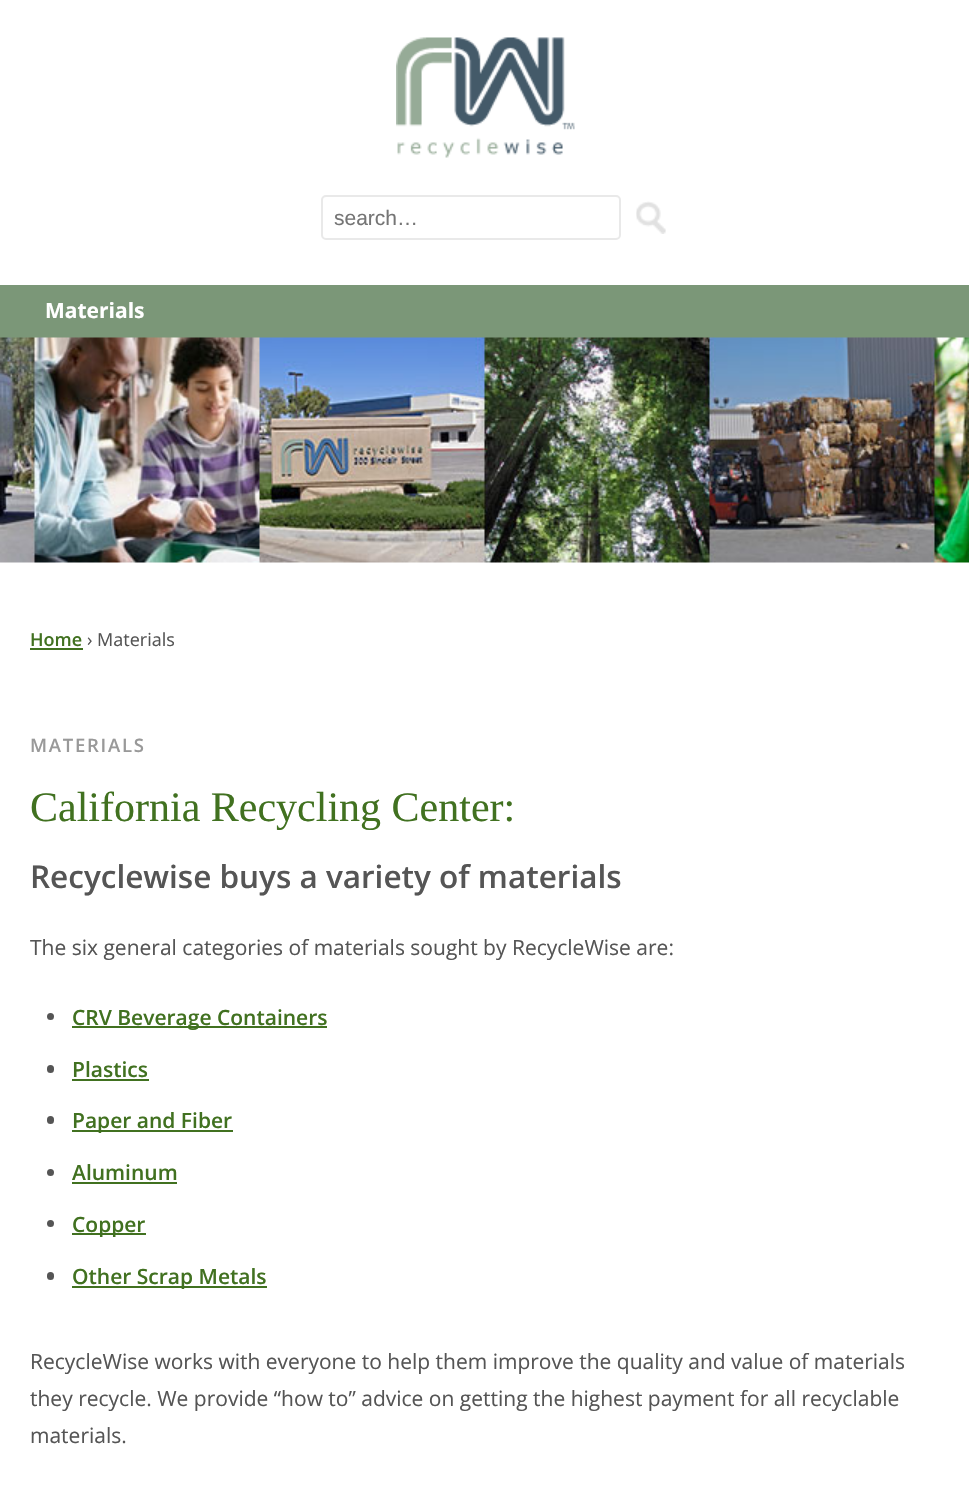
void draw(SkCanvas* canvas) {
    SkPaint paint;
    paint.setAntiAlias(true);
    auto face = [&](const char* family, int weight, float size, bool italic = false) {
        SkFontStyle style(weight, SkFontStyle::kNormal_Width,
            italic ? SkFontStyle::kItalic_Slant : SkFontStyle::kUpright_Slant);
        SkFont result(fontMgr->matchFamilyStyle(family, style), size);
        result.setSubpixel(true);
        return result;
    };
    auto write = [&](const char* s, float x, float y, const SkFont& font, SkColor color) {
        SkPaint ink(SkColor4f::FromColor(color));
        ink.setAntiAlias(true);
        canvas->drawString(s, x, y, font, ink);
    };
    auto writeSpaced = [&](const char* s, float x, float y, const SkFont& font, const SkPaint& ink, float letter, float word) {
        std::vector<SkGlyphID> glyphs(font.countText(s, strlen(s), SkTextEncoding::kUTF8));
        std::vector<float> xs(glyphs.size());
        font.textToGlyphs(s, strlen(s), SkTextEncoding::kUTF8, glyphs);
        font.getXPos(glyphs, xs, x);
        float extra = 0;
        for (size_t i = 0; i < glyphs.size(); i++) {
            xs[i] += extra;
            extra += letter + word * (glyphs[i] == font.unicharToGlyph(' '));
        }
        canvas->drawTextBlob(SkTextBlob::MakeFromPosHGlyphs(glyphs, xs, y, font), 0, 0, ink);
    };
    auto block = [&](float x, float y, float w, float h, SkColor color) {
        SkPaint ink(SkColor4f::FromColor(color));
        ink.setAntiAlias(true);
        canvas->drawRect(SkRect::MakeXYWH(x, y, w, h), ink);
    };
    auto card = [&](float x, float y, float w, float h, float radius, SkColor color) {
        SkPaint ink(SkColor4f::FromColor(color));
        ink.setAntiAlias(true);
        canvas->drawRoundRect(SkRect::MakeXYWH(x, y, w, h), radius, radius, ink);
    };
    auto paste = [&](const char* path, float x, float y, float w, float h) {
        auto image = SkImages::DeferredFromEncodedData(SkData::MakeFromFileName(path));
        canvas->drawImageRect(image, SkRect::MakeXYWH(x, y, w, h), SkSamplingOptions());
    };
    canvas->clear(SK_ColorWHITE);
    paste("pic1.png", 396, 37, 179, 121);
    paint.setStyle(SkPaint::kStroke_Style);
    paint.setStrokeWidth(2);
    paint.setColor(SkColorSetRGB(233, 233, 233));
    canvas->drawRoundRect(SkRect::MakeXYWH(322, 196, 298, 43), 4, 4, paint);
    auto kFont1 = face("Liberation Sans", 400, 21);
    write("search…", 334, 225, kFont1, SkColorSetRGB(117, 117, 117));
    paste("pic2.png", 636, 201, 30, 33);
    block(0, 285, 969, 53, SkColorSetRGB(123, 151, 120));
    auto kFont2 = face("Open Sans", 700, 21);
    write("Materials", 45, 318, kFont2, SK_ColorWHITE);
    paste("pic3.png", 0, 337, 969, 226);
    auto kFont3 = face("Open Sans", 600, 18);
    write("Home", 30, 646, kFont3, SkColorSetRGB(65, 113, 32));
    block(30, 648, 53, 2, SkColorSetRGB(65, 113, 32));
    auto kFont4 = face("Open Sans", 400, 18);
    write("› Materials", 87, 646, kFont4, SkColorSetRGB(85, 85, 85));
    auto kFont5 = face("Open Sans", 600, 18.5f);
    paint.setStyle(SkPaint::kFill_Style);
    paint.setColor(SkColorSetRGB(153, 153, 153));
    writeSpaced("MATERIALS", 30, 752, kFont5, paint, 1.75f, 0);
    auto kFont6 = face("Liberation Serif", 400, 42);
    write("California Recycling Center:", 30, 821, kFont6, SkColorSetRGB(65, 113, 32));
    auto kFont7 = face("Open Sans", 600, 31.5f);
    write("Recyclewise buys a variety of materials", 30, 888, kFont7, SkColorSetRGB(85, 85, 85));
    auto kFont8 = face("Open Sans", 400, 21);
    write("The six general categories of materials sought by RecycleWise are:", 30, 955, kFont8, SkColorSetRGB(85, 85, 85));
    paint.setColor(SkColorSetRGB(85, 85, 85));
    canvas->drawCircle(50.5f, 1016.5f, 3.5f, paint);
    block(72, 1026, 255, 2, SkColorSetRGB(65, 113, 32));
    auto kFont9 = face("Open Sans", 600, 21);
    write("CRV Beverage Containers", 72, 1025, kFont9, SkColorSetRGB(65, 113, 32));
    card(47, 1065, 7, 8, 3.5f, SkColorSetRGB(85, 85, 85));
    write("Plastics", 72, 1077, kFont9, SkColorSetRGB(65, 113, 32));
    block(72, 1079, 77, 2, SkColorSetRGB(65, 113, 32));
    card(47, 1116, 7, 8, 3.5f, SkColorSetRGB(85, 85, 85));
    block(72, 1130, 161, 2, SkColorSetRGB(65, 113, 32));
    write("Paper and Fiber", 72, 1128, kFont9, SkColorSetRGB(65, 113, 32));
    canvas->drawCircle(50.5f, 1172.5f, 3.5f, paint);
    write("Aluminum", 72, 1180, kFont9, SkColorSetRGB(65, 113, 32));
    block(72, 1182, 105, 2, SkColorSetRGB(65, 113, 32));
    canvas->drawCircle(50.5f, 1223.5f, 3.5f, paint);
    block(72, 1233, 74, 2, SkColorSetRGB(65, 113, 32));
    write("Copper", 72, 1232, kFont9, SkColorSetRGB(65, 113, 32));
    card(47, 1272, 7, 8, 3.5f, SkColorSetRGB(85, 85, 85));
    block(72, 1286, 195, 2, SkColorSetRGB(65, 113, 32));
    write("Other Scrap Metals", 72, 1284, kFont9, SkColorSetRGB(65, 113, 32));
    write("RecycleWise works with everyone to help them improve the quality and value of materials", 30, 1369, kFont8, SkColorSetRGB(85, 85, 85));
    write("they recycle. We provide “how to” advice on getting the highest payment for all recyclable", 30, 1406, kFont8, SkColorSetRGB(85, 85, 85));
    write("materials.", 30, 1443, kFont8, SkColorSetRGB(85, 85, 85));
}
